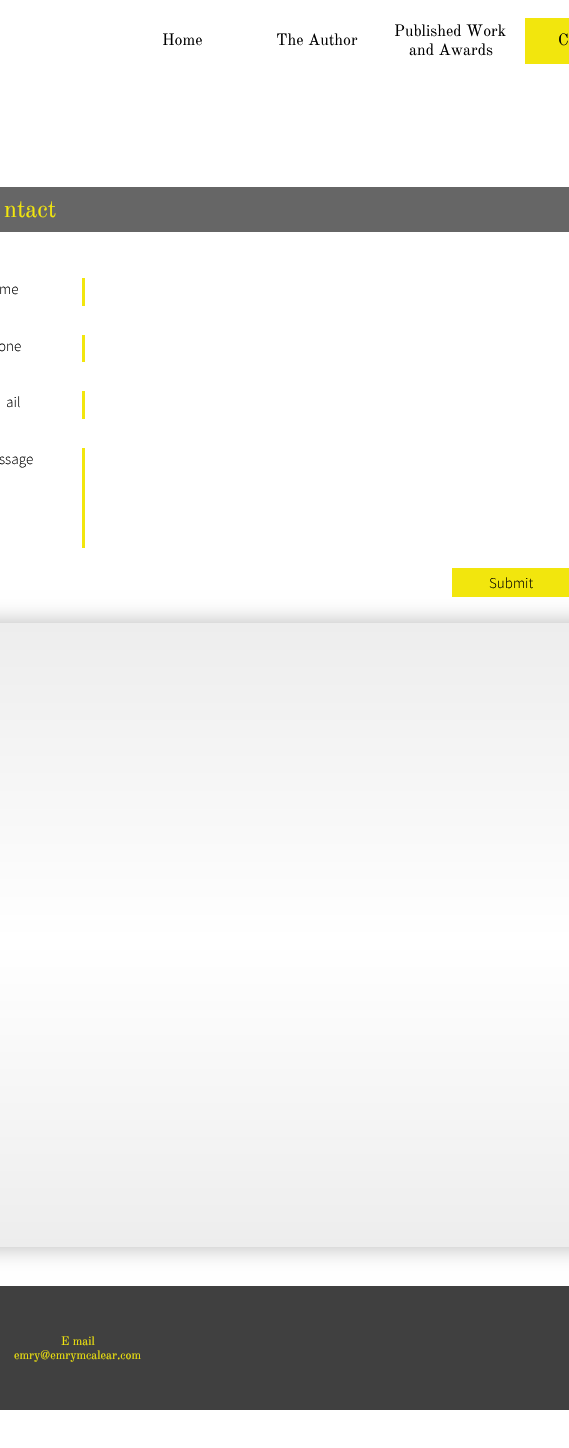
void draw(SkCanvas* canvas) {
    SkPaint paint;
    paint.setAntiAlias(true);
    auto face = [&](const char* family, int weight, float size, bool italic = false) {
        SkFontStyle style(weight, SkFontStyle::kNormal_Width,
            italic ? SkFontStyle::kItalic_Slant : SkFontStyle::kUpright_Slant);
        SkFont result(fontMgr->matchFamilyStyle(family, style), size);
        result.setSubpixel(true);
        return result;
    };
    auto write = [&](const char* s, float x, float y, const SkFont& font, SkColor color) {
        SkPaint ink(SkColor4f::FromColor(color));
        ink.setAntiAlias(true);
        canvas->drawString(s, x, y, font, ink);
    };
    auto block = [&](float x, float y, float w, float h, SkColor color) {
        SkPaint ink(SkColor4f::FromColor(color));
        ink.setAntiAlias(true);
        canvas->drawRect(SkRect::MakeXYWH(x, y, w, h), ink);
    };
    canvas->clear(SK_ColorWHITE);
    auto kFont1 = face("Old Standard TT", 400, 16);
    write("Home", 162, 45, kFont1, SK_ColorBLACK);
    write("The Author", 276, 45, kFont1, SK_ColorBLACK);
    write("Published Work", 394, 36, kFont1, SK_ColorBLACK);
    write("and Awards", 409, 55, kFont1, SK_ColorBLACK);
    block(525, 18, 44, 46, SkColorSetRGB(242, 230, 13));
    write("C", 558, 45, kFont1, SK_ColorBLACK);
    block(0, 187, 569, 45, SkColorSetRGB(102, 102, 102));
    auto kFont2 = face("Old Standard TT", 400, 24);
    write("ntact", 4, 217, kFont2, SkColorSetRGB(242, 230, 13));
    auto kFont3 = face("Source Sans Pro", 300, 15);
    write("me", -1, 294, kFont3, SK_ColorBLACK);
    block(82, 278, 3, 28, SkColorSetRGB(242, 230, 13));
    write("one", -2, 351, kFont3, SK_ColorBLACK);
    block(82, 335, 3, 27, SkColorSetRGB(242, 230, 13));
    write("ail", 6, 407, kFont3, SK_ColorBLACK);
    block(82, 391, 3, 28, SkColorSetRGB(242, 230, 13));
    write("ssage", -1, 464, kFont3, SK_ColorBLACK);
    block(82, 448, 3, 100, SkColorSetRGB(242, 230, 13));
    {
        const SkColor colors[] = {SkColorSetRGB(237, 237, 237), SK_ColorWHITE, SkColorSetRGB(237, 237, 237)};
        const float stops[] = {0, 0.51f, 1};
        const SkPoint ends[] = {{285, 623}, {285, 1247}};
        paint.setShader(SkGradientShader::MakeLinear(ends, colors, stops, 3, SkTileMode::kClamp));
        paint.setAlpha(255);
    }
    canvas->drawRect(SkRect::MakeXYWH(0, 623, 569, 624), paint);
    canvas->save();
    canvas->clipPath(SkPathBuilder(SkPathFillType::kEvenOdd).moveTo(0, 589).lineTo(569, 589).lineTo(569, 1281).lineTo(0, 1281).close().moveTo(-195, 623).lineTo(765, 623).lineTo(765, 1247).lineTo(-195, 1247).close().detach(), true);
    paint.setShader(nullptr);
    paint.setColor(SkColorSetARGB(71, 0, 0, 0));
    paint.setMaskFilter(SkMaskFilter::MakeBlur(kNormal_SkBlurStyle, 11));
    canvas->drawRect(SkRect::MakeXYWH(-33, 623, 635, 624), paint);
    paint.setMaskFilter(nullptr);
    canvas->restore();
    block(452, 568, 117, 29, SkColorSetRGB(242, 230, 13));
    write("Submit", 489, 588, kFont3, SK_ColorBLACK);
    block(0, 1286, 569, 124, SkColorSetRGB(64, 64, 64));
    auto kFont4 = face("Old Standard TT", 400, 12);
    write("E mail", 61, 1345, kFont4, SkColorSetRGB(242, 230, 13));
    write("emry@emrymcalear.com", 14, 1359, kFont4, SkColorSetRGB(242, 230, 13));
}
